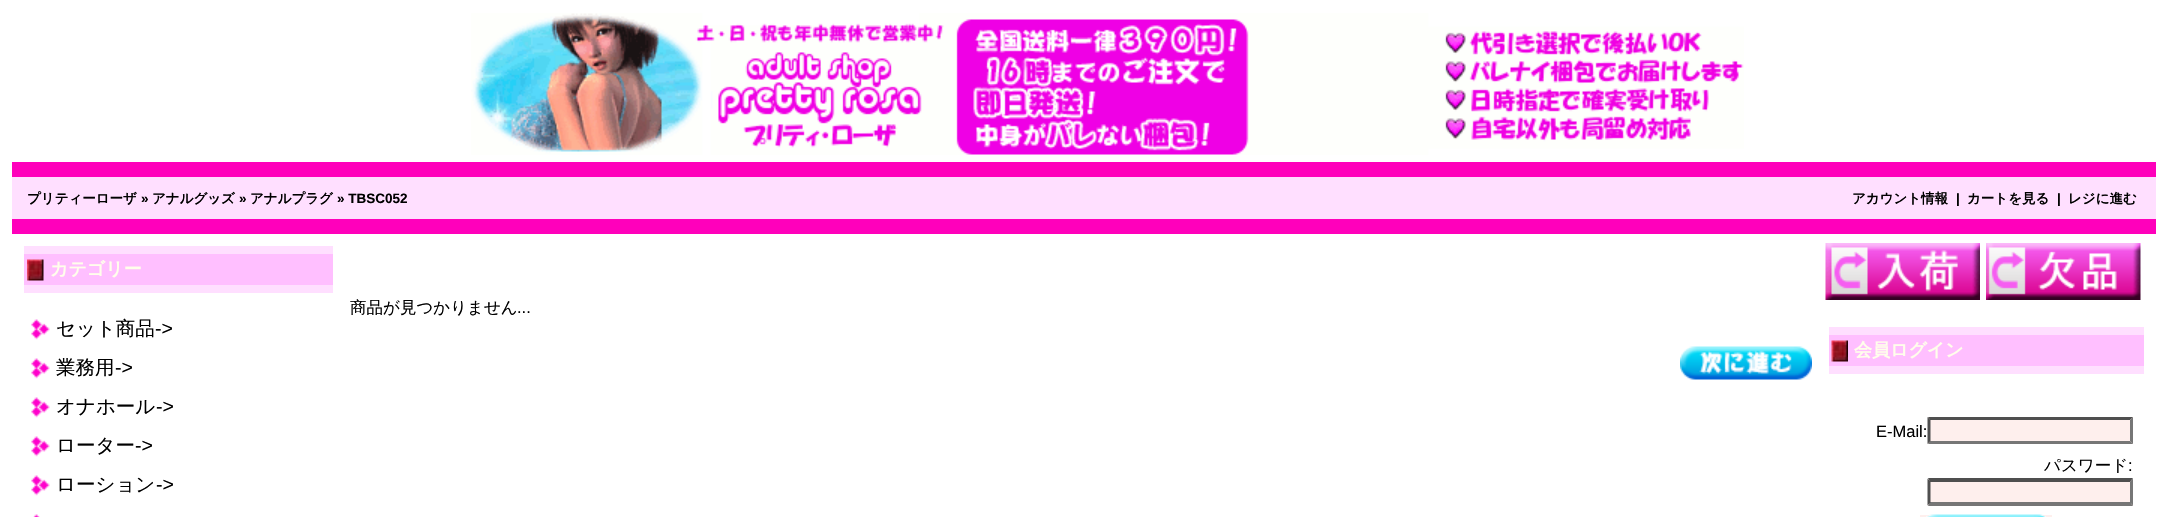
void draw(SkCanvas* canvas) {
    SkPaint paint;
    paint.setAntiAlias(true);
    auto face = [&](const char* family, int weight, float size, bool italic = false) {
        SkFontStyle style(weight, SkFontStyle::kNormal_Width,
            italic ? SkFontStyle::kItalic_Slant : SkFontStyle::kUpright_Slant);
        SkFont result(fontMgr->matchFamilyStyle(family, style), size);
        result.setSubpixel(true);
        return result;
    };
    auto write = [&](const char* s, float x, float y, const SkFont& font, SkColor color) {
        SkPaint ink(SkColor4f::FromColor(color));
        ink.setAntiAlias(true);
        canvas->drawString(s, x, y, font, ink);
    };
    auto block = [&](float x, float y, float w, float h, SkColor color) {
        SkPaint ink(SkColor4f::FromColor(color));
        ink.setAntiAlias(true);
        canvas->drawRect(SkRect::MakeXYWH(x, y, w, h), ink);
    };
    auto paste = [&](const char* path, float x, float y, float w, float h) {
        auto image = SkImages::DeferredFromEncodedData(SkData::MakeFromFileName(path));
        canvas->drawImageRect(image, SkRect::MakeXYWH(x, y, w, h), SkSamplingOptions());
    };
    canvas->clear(SK_ColorWHITE);
    paste("pic1.png", 471, 13, 1273, 142);
    block(12, 177, 2144, 42, SkColorSetRGB(255, 223, 255));
    block(12, 162, 2144, 15, SkColorSetRGB(255, 0, 187));
    block(12, 219, 2144, 15, SkColorSetRGB(255, 0, 187));
    auto kFont1 = face("WenQuanYi Zen Hei", 700, 13.5f);
    write("プリティーローザ", 27, 203, kFont1, SK_ColorBLACK);
    auto kFont2 = face("Liberation Sans", 700, 13.5f);
    write("»", 141, 203, kFont2, SK_ColorBLACK);
    write("アナルグッズ", 152, 203, kFont1, SK_ColorBLACK);
    write("»", 239, 203, kFont2, SK_ColorBLACK);
    write("アナルプラグ", 250, 203, kFont1, SK_ColorBLACK);
    write("» TBSC052", 337, 203, kFont2, SK_ColorBLACK);
    write("アカウント情報", 1852, 203, kFont1, SK_ColorBLACK);
    write("|", 1956, 203, kFont2, SK_ColorBLACK);
    write("カートを見る", 1967, 203, kFont1, SK_ColorBLACK);
    write("|", 2057, 203, kFont2, SK_ColorBLACK);
    write("レジに進む", 2068, 203, kFont1, SK_ColorBLACK);
    block(24, 254, 309, 31, SkColorSetRGB(255, 191, 255));
    block(24, 246, 309, 8, SkColorSetRGB(255, 223, 255));
    block(24, 285, 309, 8, SkColorSetRGB(255, 223, 255));
    paste("pic2.png", 27, 259, 17, 22);
    auto kFont3 = face("WenQuanYi Zen Hei", 700, 18);
    write("カテゴリー", 50, 275, kFont3, SkColorSetRGB(255, 255, 235));
    paste("pic3.png", 31, 319, 19, 21);
    auto kFont4 = face("WenQuanYi Zen Hei", 500, 19.5f);
    write("セット商品", 56, 335, kFont4, SK_ColorBLACK);
    auto kFont5 = face("Liberation Sans", 400, 19.5f);
    write("->", 155, 335, kFont5, SK_ColorBLACK);
    paste("pic3.png", 31, 358, 19, 21);
    write("業務用", 56, 374, kFont4, SK_ColorBLACK);
    write("->", 115, 374, kFont5, SK_ColorBLACK);
    paste("pic3.png", 31, 397, 19, 21);
    write("オナホール", 56, 413, kFont4, SK_ColorBLACK);
    write("->", 156, 413, kFont5, SK_ColorBLACK);
    paste("pic3.png", 31, 436, 19, 21);
    write("ローター", 56, 452, kFont4, SK_ColorBLACK);
    write("->", 135, 452, kFont5, SK_ColorBLACK);
    paste("pic3.png", 31, 475, 19, 21);
    write("ローション", 56, 491, kFont4, SK_ColorBLACK);
    write("->", 156, 491, kFont5, SK_ColorBLACK);
    paste("pic4.png", 33, 514, 7, 3);
    auto kFont6 = face("WenQuanYi Zen Hei", 500, 16.5f);
    write("商品が見つかりません", 350, 313, kFont6, SK_ColorBLACK);
    auto kFont7 = face("Liberation Sans", 400, 16.5f);
    write("...", 517, 313, kFont7, SK_ColorBLACK);
    paste("pic5.png", 1680, 346, 132, 34);
    paste("pic6.png", 1825, 243, 155, 57);
    paste("pic7.png", 1986, 243, 155, 57);
    block(1829, 335, 315, 31, SkColorSetRGB(255, 191, 255));
    block(1829, 327, 315, 8, SkColorSetRGB(255, 223, 255));
    block(1829, 366, 315, 8, SkColorSetRGB(255, 223, 255));
    paste("pic8.png", 1831, 340, 17, 22);
    write("会員ログイン", 1854, 356, kFont3, SkColorSetRGB(255, 255, 235));
    write("E-Mail:", 1876, 437, kFont7, SK_ColorBLACK);
    block(1928, 417, 205, 27, SkColorSetRGB(254, 239, 237));
    paint.setColor(SkColorSetRGB(79, 79, 79));
    canvas->drawPath(SkPathBuilder().moveTo(1928, 417).lineTo(2133, 417).lineTo(2130, 420).lineTo(1930, 420).close().detach(), paint);
    paint.setColor(SkColorSetRGB(118, 118, 118));
    canvas->drawPath(SkPathBuilder().moveTo(2133, 417).lineTo(2133, 444).lineTo(2130, 441).lineTo(2130, 420).close().detach(), paint);
    canvas->drawPath(SkPathBuilder().moveTo(2133, 444).lineTo(1928, 444).lineTo(1930, 441).lineTo(2130, 441).close().detach(), paint);
    paint.setColor(SkColorSetRGB(79, 79, 79));
    canvas->drawPath(SkPathBuilder().moveTo(1927.5f, 444).lineTo(1927.5f, 417).lineTo(1930.5f, 420).lineTo(1930.5f, 441).close().detach(), paint);
    write("パスワード", 2044, 471, kFont6, SK_ColorBLACK);
    write(":", 2128, 471, kFont7, SK_ColorBLACK);
    block(1928, 479, 205, 27, SkColorSetRGB(254, 239, 237));
    canvas->drawPath(SkPathBuilder().moveTo(1928, 478).lineTo(2133, 478).lineTo(2130, 482).lineTo(1930, 482).close().detach(), paint);
    paint.setColor(SkColorSetRGB(118, 118, 118));
    canvas->drawPath(SkPathBuilder().moveTo(2133, 478.5f).lineTo(2133, 505.5f).lineTo(2130, 502.5f).lineTo(2130, 481.5f).close().detach(), paint);
    canvas->drawPath(SkPathBuilder().moveTo(2133, 506).lineTo(1928, 506).lineTo(1930, 502).lineTo(2130, 502).close().detach(), paint);
    paint.setColor(SkColorSetRGB(79, 79, 79));
    canvas->drawPath(SkPathBuilder().moveTo(1927.5f, 505.5f).lineTo(1927.5f, 478.5f).lineTo(1930.5f, 481.5f).lineTo(1930.5f, 502.5f).close().detach(), paint);
    block(1920, 515, 132, 2, SkColorSetRGB(254, 239, 237));
    paste("pic9.png", 1926, 514, 120, 3);
}
